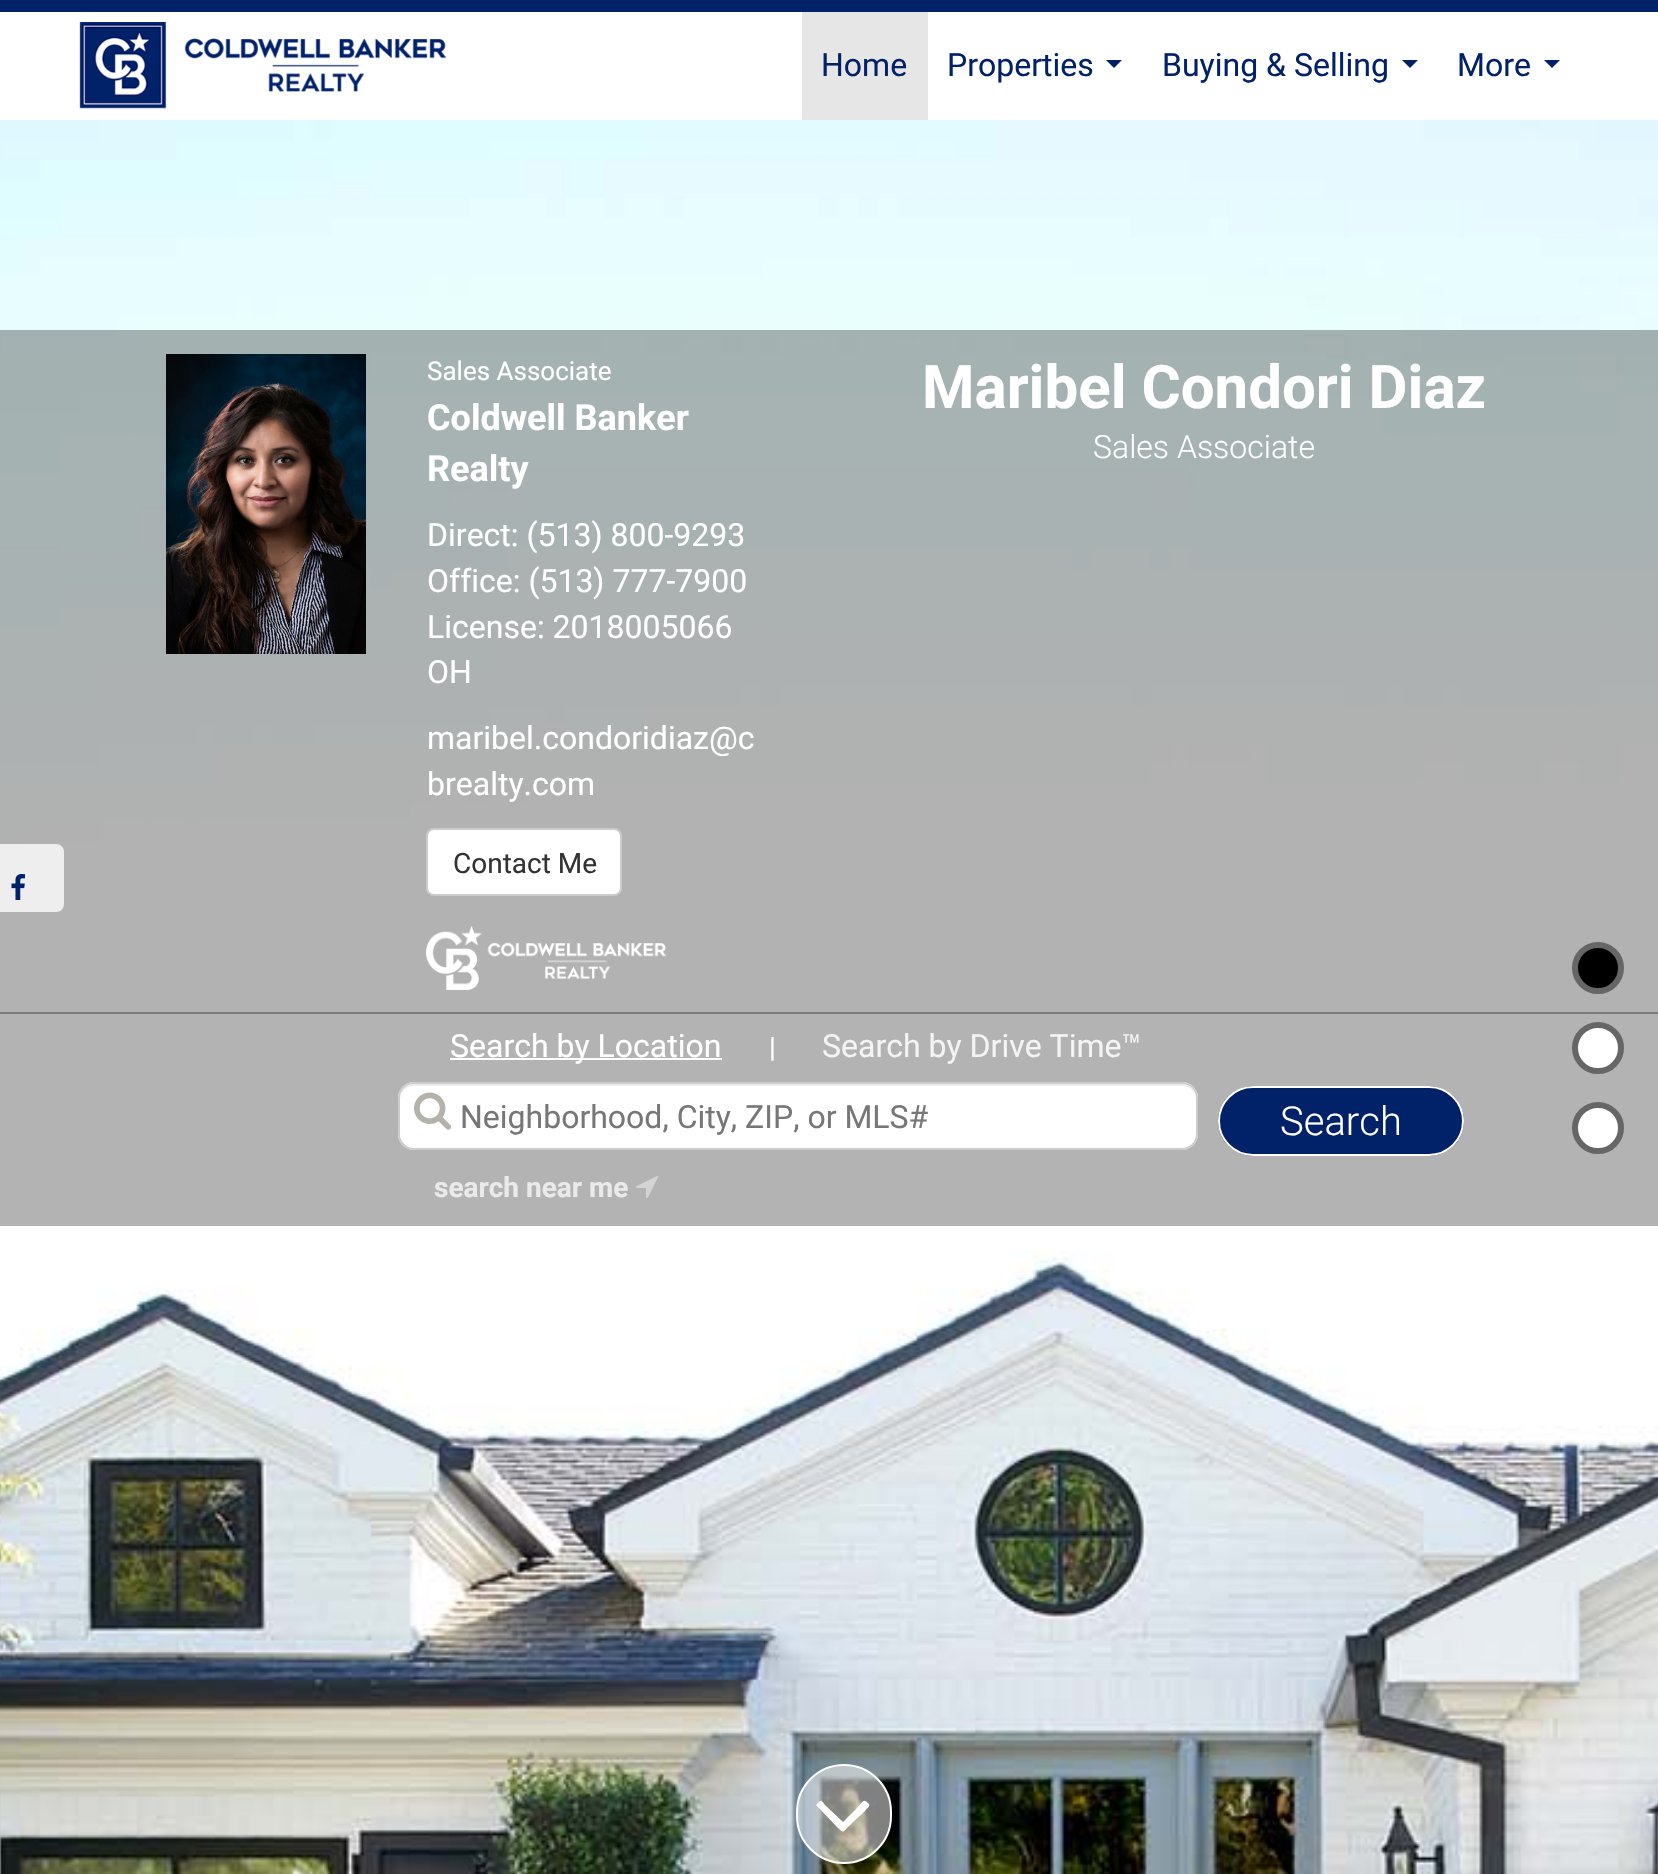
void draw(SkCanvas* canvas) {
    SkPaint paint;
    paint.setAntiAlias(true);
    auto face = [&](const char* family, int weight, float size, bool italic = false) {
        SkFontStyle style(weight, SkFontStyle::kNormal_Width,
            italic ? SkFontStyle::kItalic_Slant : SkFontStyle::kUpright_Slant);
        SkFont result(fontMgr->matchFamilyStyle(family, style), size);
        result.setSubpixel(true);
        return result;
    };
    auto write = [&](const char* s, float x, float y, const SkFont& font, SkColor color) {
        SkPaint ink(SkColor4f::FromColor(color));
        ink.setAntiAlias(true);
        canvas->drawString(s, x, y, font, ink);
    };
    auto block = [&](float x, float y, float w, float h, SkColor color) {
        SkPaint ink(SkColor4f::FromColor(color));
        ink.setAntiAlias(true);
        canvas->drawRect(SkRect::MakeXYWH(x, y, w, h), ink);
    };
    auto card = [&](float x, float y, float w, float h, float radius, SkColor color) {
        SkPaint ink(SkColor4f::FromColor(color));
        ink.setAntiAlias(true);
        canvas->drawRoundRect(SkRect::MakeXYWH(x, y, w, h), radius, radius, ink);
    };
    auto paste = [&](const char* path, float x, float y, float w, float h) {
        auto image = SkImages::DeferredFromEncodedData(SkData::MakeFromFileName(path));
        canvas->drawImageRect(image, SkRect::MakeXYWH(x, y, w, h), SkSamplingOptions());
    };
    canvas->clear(SK_ColorWHITE);
    block(0, 0, 1658, 12, SkColorSetRGB(1, 33, 105));
    paste("pic1.png", 79, 22, 368, 87);
    block(802, 12, 126, 108, SkColorSetRGB(230, 230, 230));
    auto kFont1 = face("Roboto", 400, 32);
    write("Home", 821, 76, kFont1, SkColorSetRGB(1, 33, 105));
    write("Properties", 947, 76, kFont1, SkColorSetRGB(1, 33, 105));
    paint.setColor(SkColorSetRGB(1, 33, 105));
    canvas->drawPath(SkPathBuilder().moveTo(1106, 60).lineTo(1122, 60).lineTo(1114, 68).close().detach(), paint);
    write("Buying & Selling", 1162, 76, kFont1, SkColorSetRGB(1, 33, 105));
    canvas->drawPath(SkPathBuilder().moveTo(1402, 60).lineTo(1418, 60).lineTo(1410, 68).close().detach(), paint);
    write("More", 1457, 76, kFont1, SkColorSetRGB(1, 33, 105));
    canvas->drawPath(SkPathBuilder().moveTo(1544, 60).lineTo(1560, 60).lineTo(1552, 68).close().detach(), paint);
    paste("pic3.png", 0, 120, 1658, 1754);
    block(0, 1012, 1658, 214, SkColorSetRGB(179, 179, 179));
    block(0, 330, 1658, 684, SkColorSetARGB(77, 0, 0, 0));
    paint.setColor(SkColorSetARGB(230, 244, 244, 244));
    canvas->drawPath(SkPathBuilder().moveTo(0, 844).lineTo(56, 844).cubicTo(60.5f, 844, 64, 847.5f, 64, 852).lineTo(64, 904).cubicTo(64, 908.5f, 60.5f, 912, 56, 912).lineTo(0, 912).close().detach(), paint);
    paste("pic2.png", 11, 874, 14, 26);
    paste("pic4.png", 166, 354, 200, 300);
    auto kFont2 = face("Roboto", 400, 26);
    write("Sales Associate", 427, 380, kFont2, SK_ColorWHITE);
    auto kFont3 = face("Roboto", 700, 36);
    write("Coldwell Banker", 427, 430, kFont3, SK_ColorWHITE);
    write("Realty", 427, 481, kFont3, SK_ColorWHITE);
    write("Direct: (513) 800-9293", 427, 546, kFont1, SK_ColorWHITE);
    write("Office: (513) 777-7900", 427, 592, kFont1, SK_ColorWHITE);
    write("License: 2018005066", 427, 638, kFont1, SK_ColorWHITE);
    write("OH", 427, 683, kFont1, SK_ColorWHITE);
    write("maribel.condoridiaz@c", 427, 749, kFont1, SK_ColorWHITE);
    write("brealty.com", 427, 795, kFont1, SK_ColorWHITE);
    paint.setColor(SK_ColorWHITE);
    canvas->drawRoundRect(SkRect::MakeXYWH(427, 829, 194, 66), 7, 7, paint);
    paint.setStyle(SkPaint::kStroke_Style);
    paint.setStrokeWidth(2);
    paint.setColor(SkColorSetRGB(204, 204, 204));
    canvas->drawRoundRect(SkRect::MakeXYWH(427, 829, 194, 66), 7, 7, paint);
    auto kFont4 = face("Roboto", 400, 28);
    write("Contact Me", 453, 873, kFont4, SkColorSetRGB(51, 51, 51));
    paste("pic5.png", 426, 926, 240, 64);
    auto kFont5 = face("Roboto", 700, 60);
    write("Maribel Condori Diaz", 922, 408, kFont5, SK_ColorWHITE);
    auto kFont6 = face("Roboto", 300, 32);
    write("Sales Associate", 1093, 458, kFont6, SK_ColorWHITE);
    block(450, 1058, 272, 2, SK_ColorWHITE);
    write("Search by Location", 450, 1057, kFont1, SK_ColorWHITE);
    write("|", 769, 1057, kFont4, SK_ColorWHITE);
    write("Search by Drive Time™", 822, 1057, kFont1, SkColorSetRGB(244, 244, 244));
    card(398, 1082, 800, 68, 16, SK_ColorWHITE);
    paint.setStyle(SkPaint::kFill_Style);
    paint.setColor(SkColorSetRGB(236, 236, 236));
    canvas->drawPath(SkPathBuilder().moveTo(414, 1086).lineTo(1182, 1086).cubicTo(1190, 1086, 1196, 1092, 1196, 1100).cubicTo(1196, 1092, 1191, 1084, 1182, 1084).lineTo(414, 1084).cubicTo(405, 1084, 400, 1092, 400, 1100).cubicTo(400, 1092, 406, 1086, 414, 1086).close().detach(), paint);
    paint.setStyle(SkPaint::kStroke_Style);
    paint.setColor(SkColorSetRGB(204, 204, 204));
    canvas->drawRoundRect(SkRect::MakeXYWH(399, 1083, 798, 66), 15, 15, paint);
    paste("pic6.png", 414, 1092, 38, 38);
    write("Neighborhood, City, ZIP, or MLS#", 460, 1128, kFont1, SkColorSetRGB(119, 119, 119));
    auto kFont7 = face("Roboto", 700, 28);
    write("search near me", 434, 1197, kFont7, SkColorSetRGB(234, 234, 234));
    paste("pic7.png", 636, 1176, 22, 22);
    card(1218, 1086, 246, 70, 35, SkColorSetRGB(1, 33, 105));
    paint.setStyle(SkPaint::kFill_Style);
    paint.setColor(SkColorSetRGB(1, 31, 97));
    canvas->drawPath(SkPathBuilder().moveTo(1253, 1090).lineTo(1429, 1090).cubicTo(1447, 1090, 1461, 1104, 1462, 1122).lineTo(1462, 1121).cubicTo(1462, 1103, 1447, 1088, 1429, 1088).lineTo(1253, 1088).cubicTo(1235, 1088, 1220, 1103, 1220, 1121).lineTo(1220, 1122).cubicTo(1221, 1104, 1235, 1090, 1253, 1090).close().detach(), paint);
    paint.setStyle(SkPaint::kStroke_Style);
    paint.setColor(SK_ColorWHITE);
    canvas->drawRoundRect(SkRect::MakeXYWH(1219, 1087, 244, 68), 34, 34, paint);
    auto kFont8 = face("Roboto", 300, 40);
    write("Search", 1280, 1135, kFont8, SK_ColorWHITE);
    paint.setStyle(SkPaint::kFill_Style);
    paint.setColor(SkColorSetARGB(128, 255, 255, 255));
    canvas->drawRoundRect(SkRect::MakeXYWH(797, 1765, 94, 98), 47, 47, paint);
    paint.setStyle(SkPaint::kStroke_Style);
    paint.setColor(SK_ColorWHITE);
    canvas->drawRoundRect(SkRect::MakeXYWH(797, 1765, 94, 98), 47, 47, paint);
    paint.setStyle(SkPaint::kFill_Style);
    canvas->drawPath(SkPathBuilder().moveTo(869, 1804).cubicTo(871, 1806, 865, 1810, 865, 1811).lineTo(848, 1827).cubicTo(842, 1833, 844, 1833, 837, 1827).lineTo(817, 1806).cubicTo(815, 1805, 817, 1804, 818, 1803).cubicTo(821, 1799, 822, 1801, 825, 1805).lineTo(843, 1822).lineTo(857, 1808).cubicTo(864, 1801, 863, 1798, 869, 1804).close().detach(), paint);
    paint.setColor(SK_ColorBLACK);
    canvas->drawCircle(1598, 968, 23, paint);
    paint.setStyle(SkPaint::kStroke_Style);
    paint.setStrokeWidth(6);
    paint.setColor(SkColorSetRGB(102, 102, 102));
    canvas->drawCircle(1598, 968, 23, paint);
    paint.setStyle(SkPaint::kFill_Style);
    paint.setColor(SK_ColorWHITE);
    canvas->drawCircle(1598, 1048, 23, paint);
    paint.setStyle(SkPaint::kStroke_Style);
    paint.setColor(SkColorSetRGB(102, 102, 102));
    canvas->drawCircle(1598, 1048, 23, paint);
    paint.setStyle(SkPaint::kFill_Style);
    paint.setColor(SK_ColorWHITE);
    canvas->drawCircle(1598, 1128, 23, paint);
    paint.setStyle(SkPaint::kStroke_Style);
    paint.setColor(SkColorSetRGB(102, 102, 102));
    canvas->drawCircle(1598, 1128, 23, paint);
}
